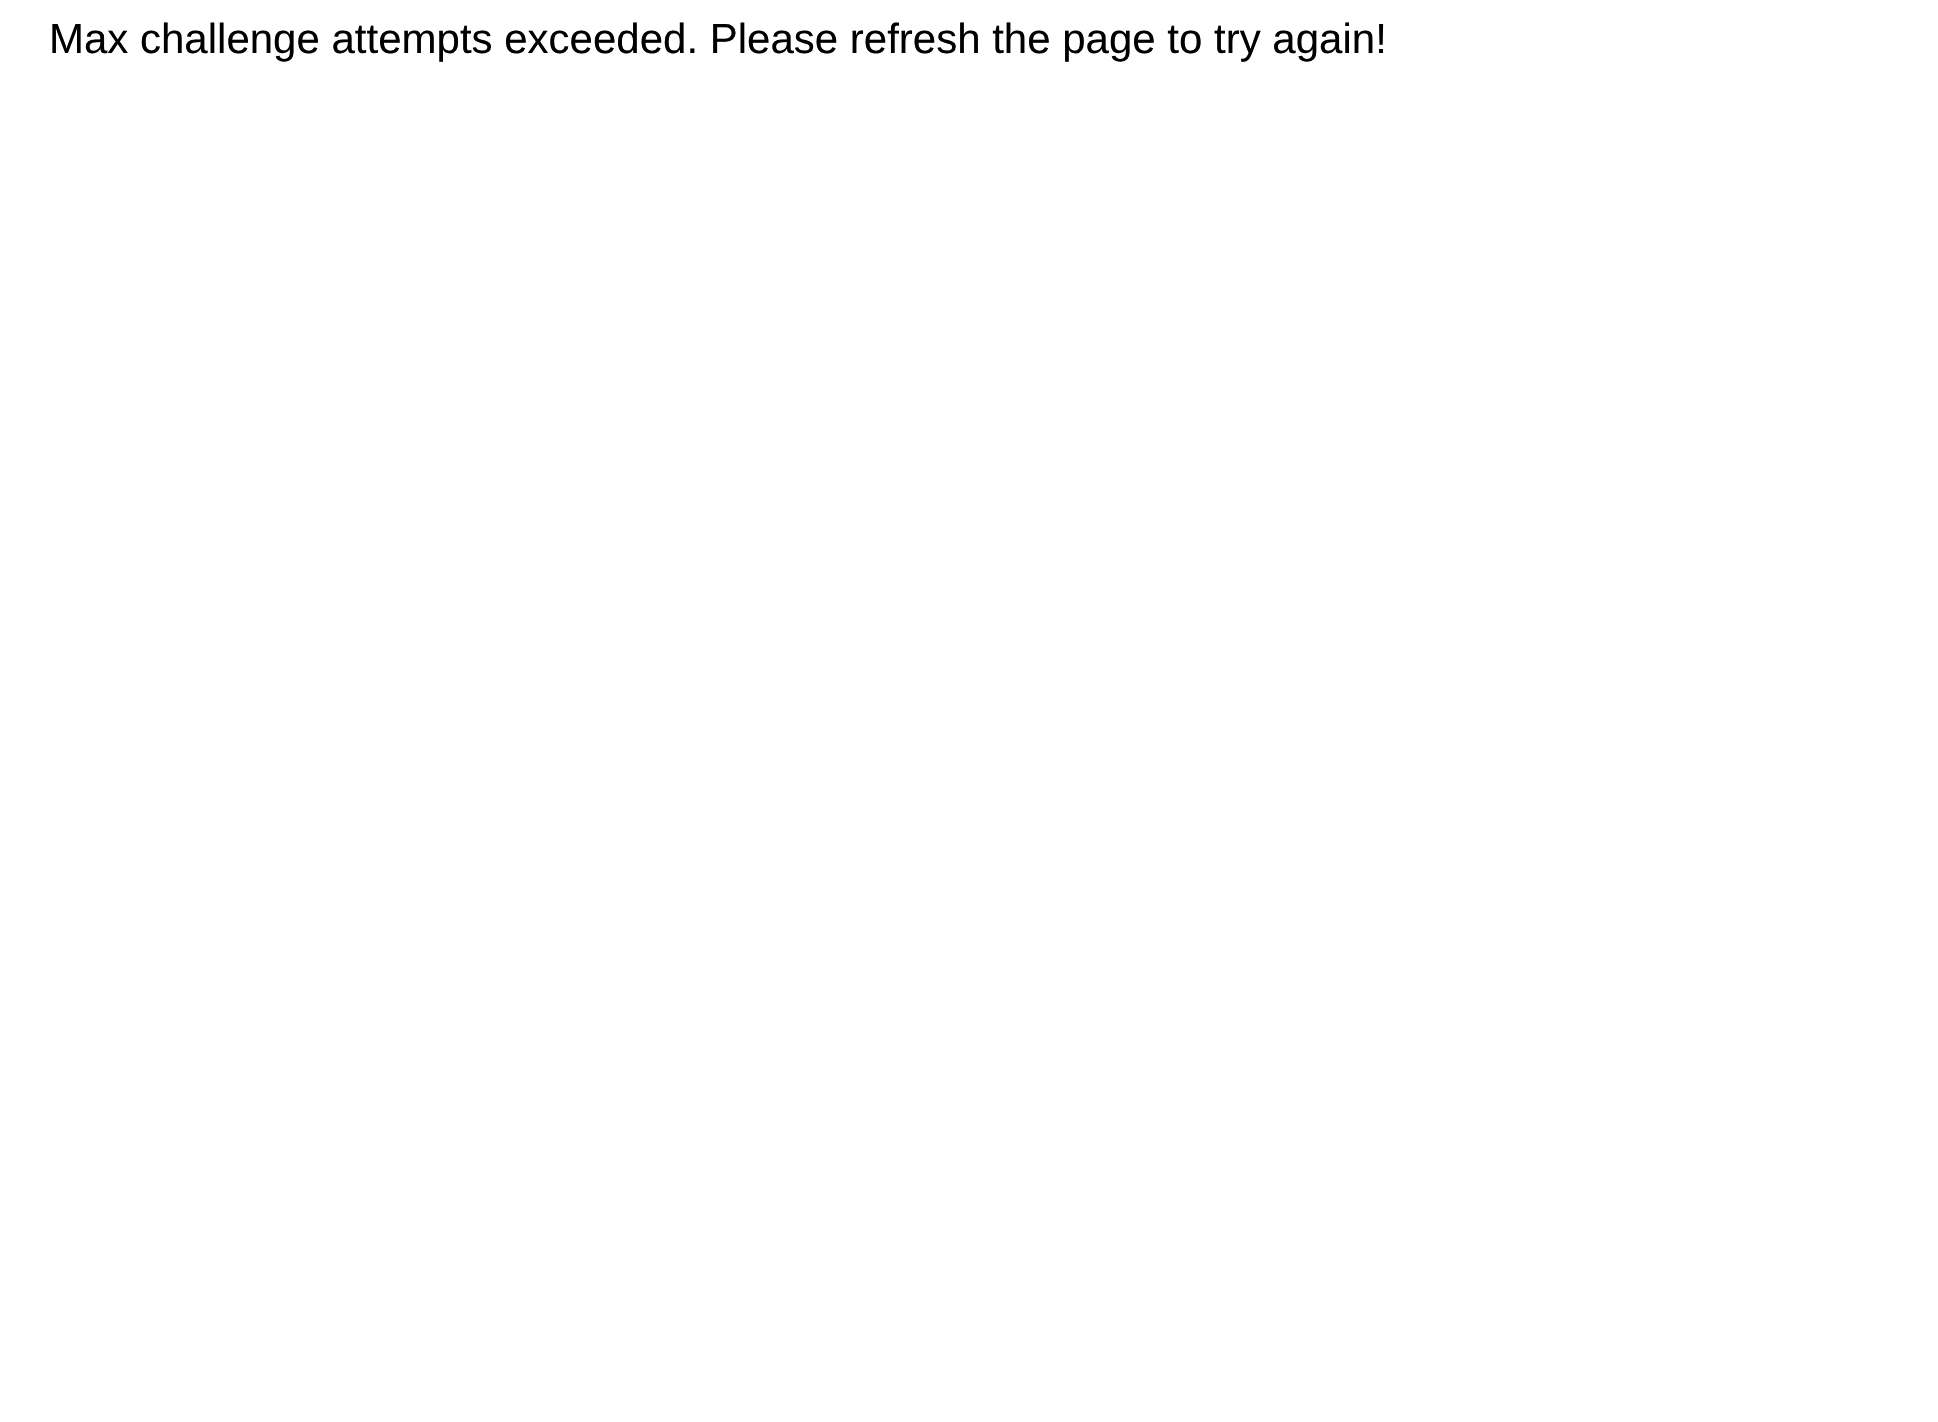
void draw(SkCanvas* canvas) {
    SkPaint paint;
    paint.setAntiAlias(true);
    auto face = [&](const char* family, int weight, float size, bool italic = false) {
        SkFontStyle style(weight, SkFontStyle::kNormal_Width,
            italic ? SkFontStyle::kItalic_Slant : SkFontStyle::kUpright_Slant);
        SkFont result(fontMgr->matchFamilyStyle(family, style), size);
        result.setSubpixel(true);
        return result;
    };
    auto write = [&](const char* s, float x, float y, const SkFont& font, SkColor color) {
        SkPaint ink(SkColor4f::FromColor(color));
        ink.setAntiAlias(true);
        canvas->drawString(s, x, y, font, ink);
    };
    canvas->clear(SK_ColorWHITE);
    auto kFont1 = face("Liberation Sans", 400, 42);
    write("Max challenge attempts exceeded. Please refresh the page to try again!", 49, 53, kFont1, SK_ColorBLACK);
}
